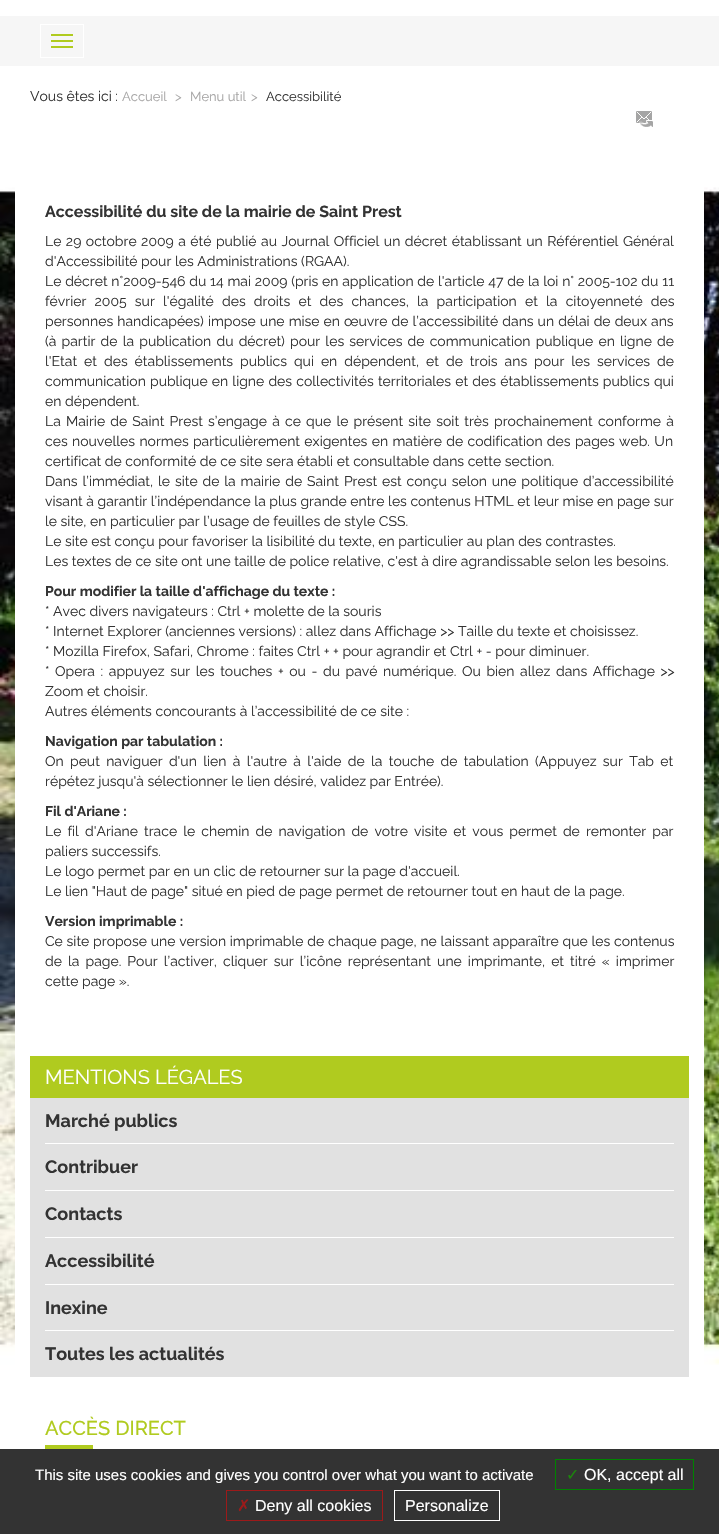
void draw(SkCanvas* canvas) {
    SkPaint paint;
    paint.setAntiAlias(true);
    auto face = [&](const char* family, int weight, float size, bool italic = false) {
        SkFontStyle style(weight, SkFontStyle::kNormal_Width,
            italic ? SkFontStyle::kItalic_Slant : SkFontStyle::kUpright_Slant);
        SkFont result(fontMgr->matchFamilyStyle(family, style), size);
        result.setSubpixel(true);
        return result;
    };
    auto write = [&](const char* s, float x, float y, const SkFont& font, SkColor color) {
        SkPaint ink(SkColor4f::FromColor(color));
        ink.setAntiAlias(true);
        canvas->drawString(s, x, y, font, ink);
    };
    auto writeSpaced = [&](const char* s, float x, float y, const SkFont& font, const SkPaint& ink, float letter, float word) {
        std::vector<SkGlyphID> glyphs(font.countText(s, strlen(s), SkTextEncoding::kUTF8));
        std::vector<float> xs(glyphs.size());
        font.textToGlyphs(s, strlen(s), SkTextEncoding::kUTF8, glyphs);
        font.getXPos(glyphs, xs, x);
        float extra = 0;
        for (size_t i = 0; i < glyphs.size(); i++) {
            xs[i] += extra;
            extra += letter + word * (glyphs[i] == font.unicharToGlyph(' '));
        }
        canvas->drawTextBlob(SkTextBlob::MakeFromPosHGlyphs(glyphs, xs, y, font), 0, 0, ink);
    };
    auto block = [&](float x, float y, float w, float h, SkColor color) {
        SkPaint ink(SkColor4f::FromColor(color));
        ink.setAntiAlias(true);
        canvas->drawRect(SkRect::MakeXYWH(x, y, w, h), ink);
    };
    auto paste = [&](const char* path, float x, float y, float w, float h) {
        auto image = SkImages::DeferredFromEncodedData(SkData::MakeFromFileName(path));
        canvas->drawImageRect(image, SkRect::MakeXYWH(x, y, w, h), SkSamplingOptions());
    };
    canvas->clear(SK_ColorWHITE);
    paste("pic1.png", 0, 187, 719, 1178);
    block(0, 16, 719, 50, SkColorSetRGB(246, 246, 246));
    paint.setStyle(SkPaint::kStroke_Style);
    paint.setStrokeWidth(1);
    paint.setColor(SK_ColorWHITE);
    canvas->drawRect(SkRect::MakeXYWH(40.5f, 24.5f, 43, 33), paint);
    block(51, 34, 22, 2, SkColorSetRGB(176, 203, 31));
    block(51, 40, 22, 2, SkColorSetRGB(176, 203, 31));
    block(51, 46, 22, 2, SkColorSetRGB(176, 203, 31));
    block(15, 187, 689, 1178, SK_ColorWHITE);
    auto kFont1 = face("Raleway", 400, 14);
    write("Vous êtes ici :", 30, 101, kFont1, SkColorSetRGB(51, 51, 51));
    auto kFont2 = face("Raleway", 400, 13);
    write("Accueil", 122, 101, kFont2, SkColorSetRGB(167, 166, 166));
    write(">", 175, 101, kFont2, SkColorSetRGB(167, 166, 166));
    write("Menu util", 190, 101, kFont2, SkColorSetRGB(167, 166, 166));
    write(">", 251, 101, kFont2, SkColorSetRGB(167, 166, 166));
    write("Accessibilité", 266, 101, kFont2, SkColorSetRGB(51, 51, 51));
    paste("pic2.png", 636, 111, 17, 16);
    auto kFont3 = face("Raleway", 700, 16);
    write("Accessibilité du site de la mairie de Saint Prest", 45, 217, kFont3, SkColorSetRGB(51, 51, 51));
    paint.setStyle(SkPaint::kFill_Style);
    paint.setColor(SkColorSetRGB(51, 51, 51));
    writeSpaced("Le 29 octobre 2009 a été publié au Journal Officiel un décret établissant un Référentiel Général", 45, 246, kFont1, paint, 0, 0.9f);
    write("d'Accessibilité pour les Administrations (RGAA).", 45, 266, kFont1, SkColorSetRGB(51, 51, 51));
    writeSpaced("Le décret n°2009-546 du 14 mai 2009 (pris en application de l'article 47 de la loi n° 2005-102 du 11", 45, 286, kFont1, paint, 0, 0.2f);
    writeSpaced("février 2005 sur l'égalité des droits et des chances, la participation et la citoyenneté des", 45, 306, kFont1, paint, 0, 4.6f);
    writeSpaced("personnes handicapées) impose une mise en œuvre de l’accessibilité dans un délai de deux ans", 45, 326, kFont1, paint, 0, 0.5f);
    writeSpaced("(à partir de la publication du décret) pour les services de communication publique en ligne de", 45, 346, kFont1, paint, 0, 1.6f);
    writeSpaced("l'Etat et des établissements publics qui en dépendent, et de trois ans pour les services de", 45, 366, kFont1, paint, 0, 3.4f);
    writeSpaced("communication publique en ligne des collectivités territoriales et des établissements publics qui", 45, 386, kFont1, paint, 0, 0.6f);
    write("en dépendent.", 45, 406, kFont1, SkColorSetRGB(51, 51, 51));
    writeSpaced("La Mairie de Saint Prest s’engage à ce que le présent site soit très prochainement conforme à", 45, 426, kFont1, paint, 0, 1.6f);
    writeSpaced("ces nouvelles normes particulièrement exigentes en matière de codification des pages web. Un", 45, 446, kFont1, paint, 0, 0.75f);
    write("certificat de conformité de ce site sera établi et consultable dans cette section.", 45, 466, kFont1, SkColorSetRGB(51, 51, 51));
    writeSpaced("Dans l’immédiat, le site de la mairie de Saint Prest est conçu selon une politique d’accessibilité", 45, 486, kFont1, paint, 0, 1.3f);
    write("visant à garantir l’indépendance la plus grande entre les contenus HTML et leur mise en page sur", 45, 506, kFont1, SkColorSetRGB(51, 51, 51));
    write("le site, en particulier par l’usage de feuilles de style CSS.", 45, 526, kFont1, SkColorSetRGB(51, 51, 51));
    write("Le site est conçu pour favoriser la lisibilité du texte, en particulier au plan des contrastes.", 45, 546, kFont1, SkColorSetRGB(51, 51, 51));
    write("Les textes de ce site ont une taille de police relative, c'est à dire agrandissable selon les besoins.", 45, 566, kFont1, SkColorSetRGB(51, 51, 51));
    auto kFont4 = face("Raleway", 700, 14);
    write("Pour modifier la taille d'affichage du texte :", 45, 596, kFont4, SkColorSetRGB(51, 51, 51));
    write("* Avec divers navigateurs : Ctrl + molette de la souris", 45, 616, kFont1, SkColorSetRGB(51, 51, 51));
    write("* Internet Explorer (anciennes versions) : allez dans Affichage >> Taille du texte et choisissez.", 45, 636, kFont1, SkColorSetRGB(51, 51, 51));
    write("* Mozilla Firefox, Safari, Chrome : faites Ctrl + + pour agrandir et Ctrl + - pour diminuer.", 45, 656, kFont1, SkColorSetRGB(51, 51, 51));
    writeSpaced("* Opera : appuyez sur les touches + ou - du pavé numérique. Ou bien allez dans Affichage >>", 45, 676, kFont1, paint, 0, 2);
    write("Zoom et choisir.", 45, 696, kFont1, SkColorSetRGB(51, 51, 51));
    write("Autres éléments concourants à l’accessibilité de ce site :", 45, 716, kFont1, SkColorSetRGB(51, 51, 51));
    write("Navigation par tabulation :", 45, 746, kFont4, SkColorSetRGB(51, 51, 51));
    writeSpaced("On peut naviguer d'un lien à l'autre à l'aide de la touche de tabulation (Appuyez sur Tab et", 45, 766, kFont1, paint, 0, 2.75f);
    write("répétez jusqu'à sélectionner le lien désiré, validez par Entrée).", 45, 786, kFont1, SkColorSetRGB(51, 51, 51));
    write("Fil d'Ariane :", 45, 816, kFont4, SkColorSetRGB(51, 51, 51));
    writeSpaced("Le fil d'Ariane trace le chemin de navigation de votre visite et vous permet de remonter par", 45, 836, kFont1, paint, 0, 2.5f);
    write("paliers successifs.", 45, 856, kFont1, SkColorSetRGB(51, 51, 51));
    write("Le logo permet par en un clic de retourner sur la page d'accueil.", 45, 876, kFont1, SkColorSetRGB(51, 51, 51));
    write("Le lien \"Haut de page\" situé en pied de page permet de retourner tout en haut de la page.", 45, 896, kFont1, SkColorSetRGB(51, 51, 51));
    write("Version imprimable :", 45, 926, kFont4, SkColorSetRGB(51, 51, 51));
    writeSpaced("Ce site propose une version imprimable de chaque page, ne laissant apparaître que les contenus", 45, 946, kFont1, paint, 0, 0.2f);
    writeSpaced("de la page. Pour l’activer, cliquer sur l’icône représentant une imprimante, et titré « imprimer", 45, 966, kFont1, paint, 0, 2.5f);
    write("cette page ».", 45, 986, kFont1, SkColorSetRGB(51, 51, 51));
    block(30, 1098, 659, 279, SkColorSetRGB(225, 225, 225));
    block(30, 1056, 659, 42, SkColorSetRGB(176, 203, 31));
    auto kFont5 = face("Raleway", 400, 20);
    write("MENTIONS LÉGALES", 45, 1084, kFont5, SK_ColorWHITE);
    block(45, 1143, 629, 1, SK_ColorWHITE);
    auto kFont6 = face("Raleway", 700, 18);
    write("Marché publics", 45, 1127, kFont6, SkColorSetRGB(51, 51, 51));
    block(45, 1190, 629, 1, SK_ColorWHITE);
    write("Contribuer", 45, 1173, kFont6, SkColorSetRGB(51, 51, 51));
    block(45, 1237, 629, 1, SK_ColorWHITE);
    write("Contacts", 45, 1220, kFont6, SkColorSetRGB(51, 51, 51));
    block(45, 1284, 629, 1, SK_ColorWHITE);
    write("Accessibilité", 45, 1267, kFont6, SkColorSetRGB(51, 51, 51));
    block(45, 1330, 629, 1, SK_ColorWHITE);
    write("Inexine", 45, 1314, kFont6, SkColorSetRGB(51, 51, 51));
    write("Toutes les actualités", 45, 1360, kFont6, SkColorSetRGB(51, 51, 51));
    auto kFont7 = face("Raleway", 500, 20);
    write("ACCÈS DIRECT", 45, 1435, kFont7, SkColorSetRGB(176, 203, 31));
    block(45, 1445, 48, 4, SkColorSetRGB(176, 203, 31));
    block(0, 1449, 719, 85, SkColorSetRGB(51, 51, 51));
    auto kFont8 = face("Liberation Sans", 400, 15);
    write("This site uses cookies and gives you control over what you want to activate", 35, 1480, kFont8, SK_ColorWHITE);
    paint.setStyle(SkPaint::kStroke_Style);
    paint.setColor(SkColorSetRGB(0, 131, 0));
    canvas->drawRect(SkRect::MakeXYWH(555.5f, 1459.5f, 138, 30), paint);
    auto kFont9 = face("DejaVu Sans", 400, 16);
    write("✓", 566, 1480, kFont9, SkColorSetRGB(27, 135, 11));
    auto kFont10 = face("Liberation Sans", 400, 16);
    write("OK, accept all", 584, 1480, kFont10, SK_ColorWHITE);
    paint.setColor(SkColorSetRGB(156, 26, 26));
    canvas->drawRect(SkRect::MakeXYWH(226.5f, 1490.5f, 156, 30), paint);
    write("✗", 237, 1511, kFont9, SkColorSetRGB(156, 26, 26));
    write("Deny all cookies", 255, 1511, kFont10, SK_ColorWHITE);
    paint.setColor(SK_ColorWHITE);
    canvas->drawRect(SkRect::MakeXYWH(394.5f, 1490.5f, 105, 30), paint);
    write("Personalize", 405, 1511, kFont10, SK_ColorWHITE);
}
